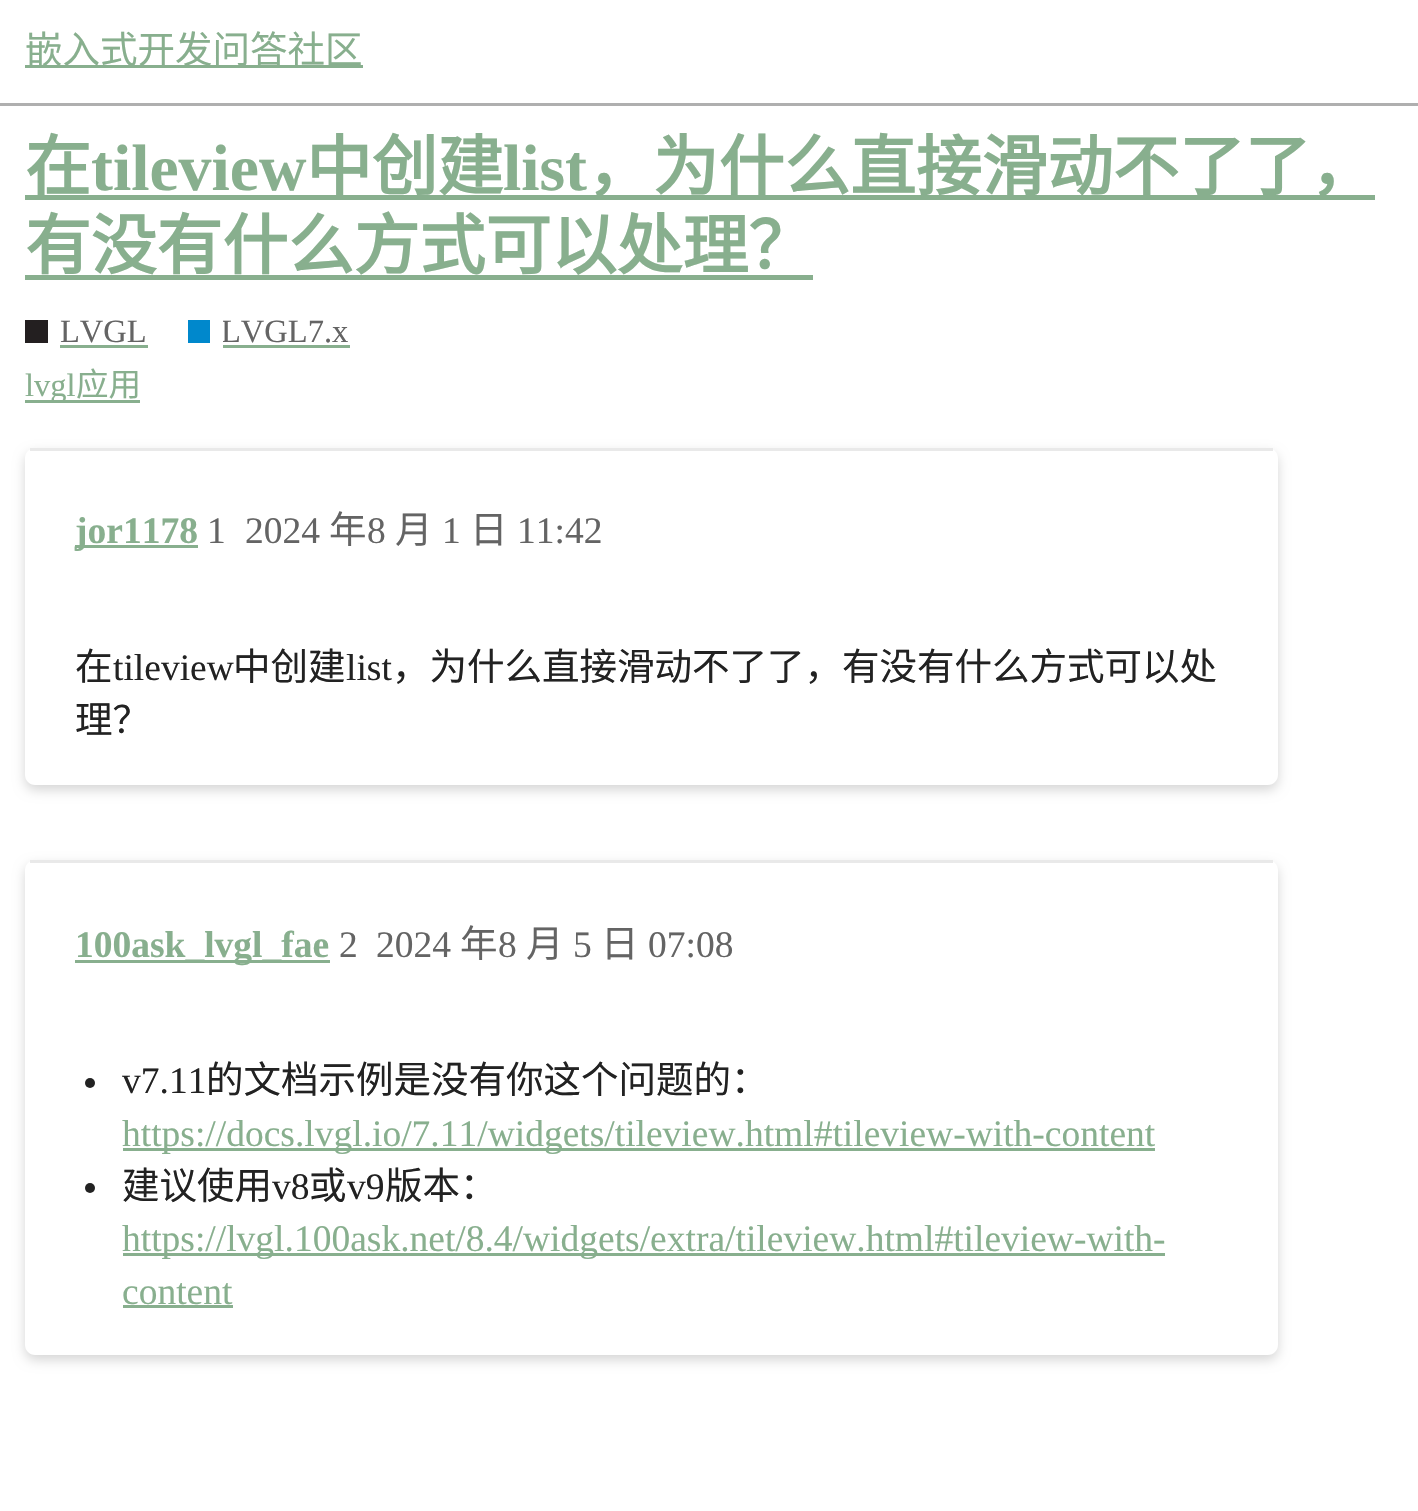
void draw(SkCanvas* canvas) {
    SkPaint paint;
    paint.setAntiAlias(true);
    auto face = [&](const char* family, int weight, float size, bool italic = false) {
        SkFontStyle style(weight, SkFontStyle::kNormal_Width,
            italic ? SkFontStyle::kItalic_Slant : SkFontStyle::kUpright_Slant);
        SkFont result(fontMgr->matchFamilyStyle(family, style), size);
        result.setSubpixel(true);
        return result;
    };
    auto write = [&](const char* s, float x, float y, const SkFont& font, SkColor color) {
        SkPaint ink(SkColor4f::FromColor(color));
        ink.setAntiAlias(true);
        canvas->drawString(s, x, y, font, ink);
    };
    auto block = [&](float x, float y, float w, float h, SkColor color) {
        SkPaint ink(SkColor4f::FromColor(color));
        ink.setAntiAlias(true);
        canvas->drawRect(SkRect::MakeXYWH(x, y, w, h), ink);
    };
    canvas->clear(SK_ColorWHITE);
    block(0, 103, 1418, 3, SkColorSetRGB(175, 175, 175));
    block(25, 65, 338, 3, SkColorSetRGB(136, 175, 142));
    auto kFont1 = face("Noto Sans CJK SC", 400, 37.5f);
    write("嵌入式开发问答社区", 25, 63, kFont1, SkColorSetRGB(136, 175, 142));
    auto kFont2 = face("Noto Sans CJK SC", 700, 65.75f);
    write("在", 25, 190, kFont2, SkColorSetRGB(136, 175, 142));
    auto kFont3 = face("Liberation Serif", 700, 65.75f);
    write("tileview", 91, 190, kFont3, SkColorSetRGB(136, 175, 142));
    block(25, 195, 1350, 5, SkColorSetRGB(136, 175, 142));
    write("中创建", 306, 190, kFont2, SkColorSetRGB(136, 175, 142));
    write("list", 503, 190, kFont3, SkColorSetRGB(136, 175, 142));
    write("，为什么直接滑动不了了，", 587, 190, kFont2, SkColorSetRGB(136, 175, 142));
    write("有没有什么方式可以处理？", 25, 269, kFont2, SkColorSetRGB(136, 175, 142));
    block(25, 275, 788, 5, SkColorSetRGB(136, 175, 142));
    block(25, 320, 23, 23, SkColorSetRGB(35, 31, 32));
    auto kFont4 = face("Liberation Serif", 400, 32.5f);
    write("LVGL", 60, 342, kFont4, SkColorSetRGB(100, 100, 100));
    block(60, 345, 88, 3, SkColorSetRGB(136, 175, 142));
    block(188, 320, 22, 23, SkColorSetRGB(0, 136, 204));
    canvas->save();
    canvas->clipRect(SkRect::MakeXYWH(223, 310, 127, 45));
    write("LVGL7.x", 221, 342, kFont4, SkColorSetRGB(100, 100, 100));
    canvas->restore();
    block(223, 345, 127, 3, SkColorSetRGB(136, 175, 142));
    block(25, 400, 115, 3, SkColorSetRGB(136, 175, 142));
    write("lvgl", 25, 396, kFont4, SkColorSetRGB(136, 175, 142));
    auto kFont5 = face("Noto Sans CJK SC", 400, 32.5f);
    write("应用", 76, 396, kFont5, SkColorSetRGB(136, 175, 142));
    canvas->save();
    canvas->clipPath(SkPathBuilder(SkPathFillType::kEvenOdd).moveTo(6, 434).lineTo(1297, 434).lineTo(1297, 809).lineTo(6, 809).close().moveTo(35, 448).lineTo(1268, 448).cubicTo(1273.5f, 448, 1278, 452.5f, 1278, 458).lineTo(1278, 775).cubicTo(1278, 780.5f, 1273.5f, 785, 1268, 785).lineTo(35, 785).cubicTo(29.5f, 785, 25, 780.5f, 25, 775).lineTo(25, 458).cubicTo(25, 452.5f, 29.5f, 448, 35, 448).close().detach(), true);
    paint.setColor(SkColorSetARGB(41, 0, 0, 0));
    paint.setMaskFilter(SkMaskFilter::MakeBlur(kNormal_SkBlurStyle, 6));
    canvas->drawRoundRect(SkRect::MakeXYWH(25, 453, 1253, 337), 10, 10, paint);
    paint.setMaskFilter(nullptr);
    canvas->restore();
    block(30, 448, 1243, 3, SkColorSetRGB(233, 233, 233));
    block(75, 545, 123, 3, SkColorSetRGB(136, 175, 142));
    auto kFont6 = face("Liberation Serif", 700, 37.5f);
    write("jor1178", 75, 543, kFont6, SkColorSetRGB(136, 175, 142));
    auto kFont7 = face("Liberation Serif", 400, 37.5f);
    write("1", 207, 543, kFont7, SkColorSetRGB(100, 100, 100));
    write("2024", 245, 543, kFont7, SkColorSetRGB(100, 100, 100));
    write("年", 329, 543, kFont1, SkColorSetRGB(100, 100, 100));
    write("8", 367, 543, kFont7, SkColorSetRGB(100, 100, 100));
    write("月", 395, 543, kFont1, SkColorSetRGB(100, 100, 100));
    write("1", 442, 543, kFont7, SkColorSetRGB(100, 100, 100));
    write("日", 470, 543, kFont1, SkColorSetRGB(100, 100, 100));
    write("11:42", 517, 543, kFont7, SkColorSetRGB(100, 100, 100));
    write("在", 75, 680, kFont1, SkColorSetRGB(34, 34, 34));
    write("tileview", 113, 680, kFont7, SkColorSetRGB(34, 34, 34));
    write("中创建", 233, 680, kFont1, SkColorSetRGB(34, 34, 34));
    write("list", 346, 680, kFont7, SkColorSetRGB(34, 34, 34));
    write("，为什么直接滑动不了了，有没有什么方式可以处", 392, 680, kFont1, SkColorSetRGB(34, 34, 34));
    write("理？", 75, 733, kFont1, SkColorSetRGB(34, 34, 34));
    canvas->save();
    canvas->clipPath(SkPathBuilder(SkPathFillType::kEvenOdd).moveTo(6, 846).lineTo(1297, 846).lineTo(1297, 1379).lineTo(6, 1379).close().moveTo(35, 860).lineTo(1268, 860).cubicTo(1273.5f, 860, 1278, 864.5f, 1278, 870).lineTo(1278, 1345).cubicTo(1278, 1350.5f, 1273.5f, 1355, 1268, 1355).lineTo(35, 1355).cubicTo(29.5f, 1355, 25, 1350.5f, 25, 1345).lineTo(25, 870).cubicTo(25, 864.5f, 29.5f, 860, 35, 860).close().detach(), true);
    paint.setMaskFilter(SkMaskFilter::MakeBlur(kNormal_SkBlurStyle, 6));
    canvas->drawRoundRect(SkRect::MakeXYWH(25, 865, 1253, 495), 10, 10, paint);
    paint.setMaskFilter(nullptr);
    canvas->restore();
    block(30, 860, 1243, 3, SkColorSetRGB(233, 233, 233));
    block(75, 960, 255, 3, SkColorSetRGB(136, 175, 142));
    write("100ask_lvgl_fae", 75, 957, kFont6, SkColorSetRGB(136, 175, 142));
    write("2", 339, 957, kFont7, SkColorSetRGB(100, 100, 100));
    write("2024", 376, 957, kFont7, SkColorSetRGB(100, 100, 100));
    write("年", 460, 957, kFont1, SkColorSetRGB(100, 100, 100));
    write("8", 498, 957, kFont7, SkColorSetRGB(100, 100, 100));
    write("月", 526, 957, kFont1, SkColorSetRGB(100, 100, 100));
    write("5", 573, 957, kFont7, SkColorSetRGB(100, 100, 100));
    write("日", 601, 957, kFont1, SkColorSetRGB(100, 100, 100));
    write("07:08", 648, 957, kFont7, SkColorSetRGB(100, 100, 100));
    paint.setColor(SkColorSetRGB(34, 34, 34));
    canvas->drawCircle(90, 1083, 5, paint);
    write("v7.11", 122, 1093, kFont7, SkColorSetRGB(34, 34, 34));
    write("的文档示例是没有你这个问题的：", 206, 1093, kFont1, SkColorSetRGB(34, 34, 34));
    block(123, 1148, 1032, 3, SkColorSetRGB(136, 175, 142));
    write("https://docs.lvgl.io/7.11/widgets/tileview.html#tileview-with-content", 122, 1146, kFont7, SkColorSetRGB(136, 175, 142));
    canvas->drawCircle(90, 1188, 5, paint);
    write("建议使用", 122, 1199, kFont1, SkColorSetRGB(34, 34, 34));
    write("v8", 272, 1199, kFont7, SkColorSetRGB(34, 34, 34));
    write("或", 309, 1199, kFont1, SkColorSetRGB(34, 34, 34));
    write("v9", 347, 1199, kFont7, SkColorSetRGB(34, 34, 34));
    write("版本：", 385, 1199, kFont1, SkColorSetRGB(34, 34, 34));
    block(123, 1253, 1042, 3, SkColorSetRGB(136, 175, 142));
    write("https://lvgl.100ask.net/8.4/widgets/extra/tileview.html#tileview-with-", 122, 1251, kFont7, SkColorSetRGB(136, 175, 142));
    write("content", 122, 1304, kFont7, SkColorSetRGB(136, 175, 142));
    block(123, 1305, 110, 3, SkColorSetRGB(136, 175, 142));
}
